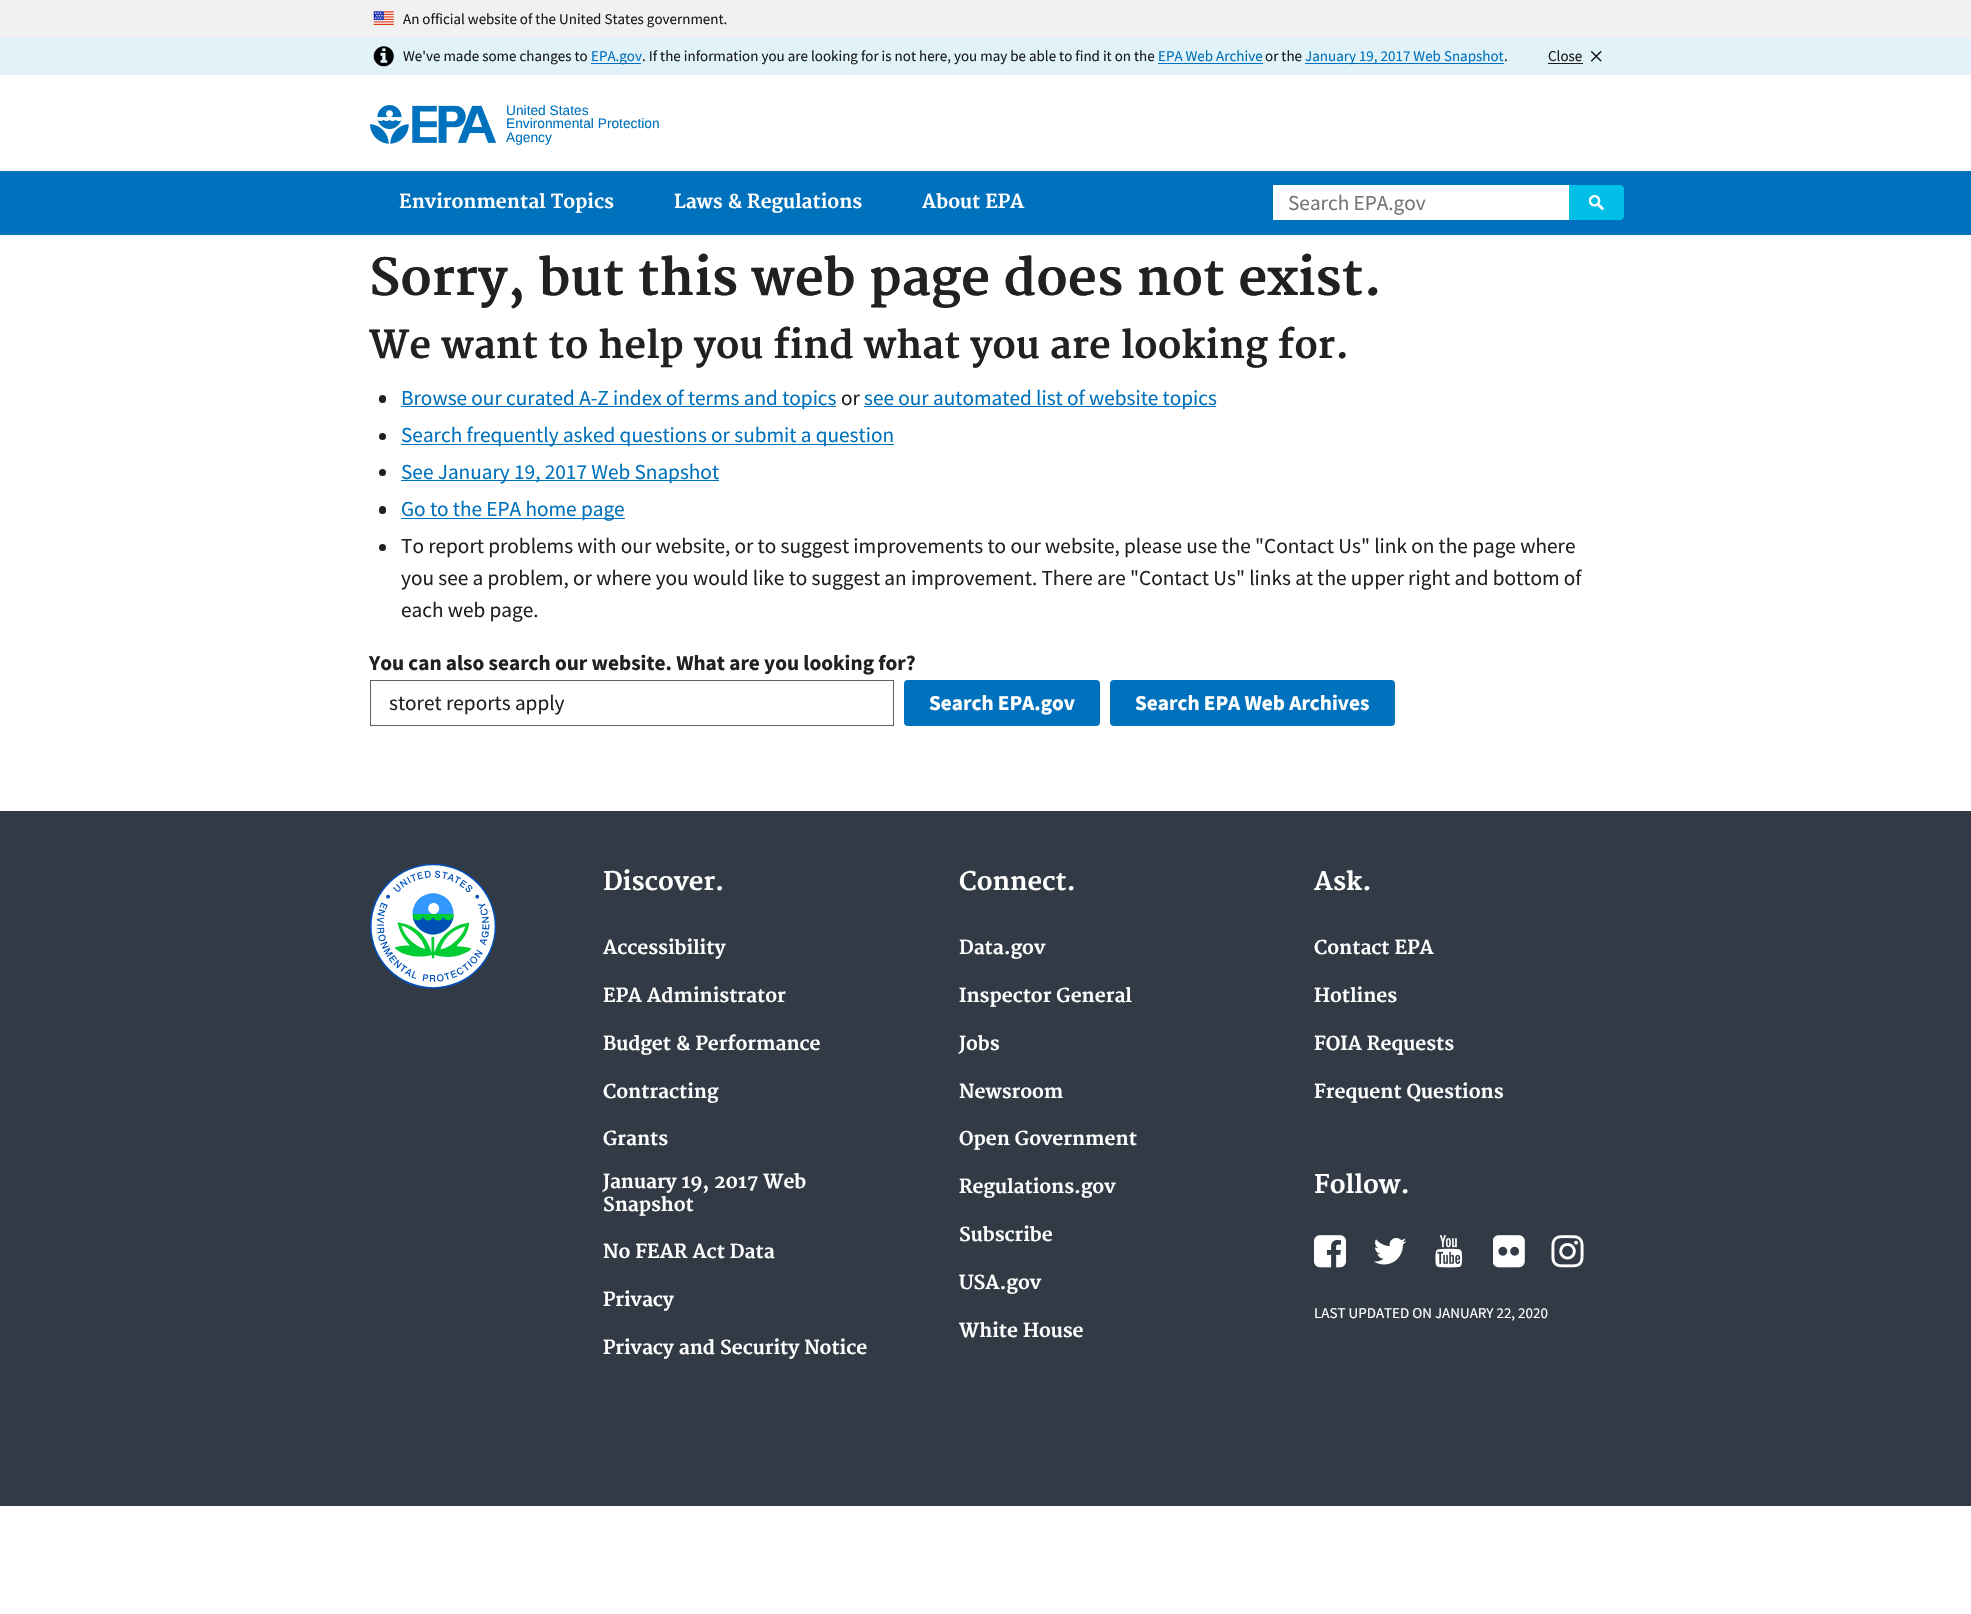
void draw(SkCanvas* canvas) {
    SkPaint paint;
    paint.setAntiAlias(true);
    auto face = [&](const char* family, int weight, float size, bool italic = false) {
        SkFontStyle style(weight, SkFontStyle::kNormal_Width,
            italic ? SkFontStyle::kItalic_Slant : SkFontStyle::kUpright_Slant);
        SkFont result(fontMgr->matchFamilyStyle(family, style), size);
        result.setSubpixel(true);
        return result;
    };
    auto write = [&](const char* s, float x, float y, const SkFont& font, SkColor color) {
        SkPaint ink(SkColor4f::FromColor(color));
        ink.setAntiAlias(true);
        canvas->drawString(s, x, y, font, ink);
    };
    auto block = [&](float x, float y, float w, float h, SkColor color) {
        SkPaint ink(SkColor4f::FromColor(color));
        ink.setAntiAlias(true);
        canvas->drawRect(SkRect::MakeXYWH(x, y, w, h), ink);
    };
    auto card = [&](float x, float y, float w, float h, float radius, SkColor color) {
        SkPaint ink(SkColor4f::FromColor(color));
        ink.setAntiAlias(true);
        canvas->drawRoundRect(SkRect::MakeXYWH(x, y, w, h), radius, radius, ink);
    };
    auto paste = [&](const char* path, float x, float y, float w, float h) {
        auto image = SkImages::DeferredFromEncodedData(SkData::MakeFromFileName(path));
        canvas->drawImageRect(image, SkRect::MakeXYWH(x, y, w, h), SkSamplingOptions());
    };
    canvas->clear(SK_ColorWHITE);
    block(0, 0, 1971, 38, SkColorSetRGB(241, 241, 241));
    paste("pic1.png", 373, 11, 21, 14);
    auto kFont1 = face("Source Sans Pro", 400, 15);
    write("An official website of the United States government.", 403, 24, kFont1, SkColorSetRGB(27, 27, 27));
    block(0, 38, 1971, 37, SkColorSetRGB(225, 243, 248));
    paste("pic2.png", 373, 46, 21, 21);
    write("We've made some changes to", 403, 61, kFont1, SkColorSetRGB(27, 27, 27));
    block(591, 63, 50, 1, SkColorSetRGB(0, 113, 188));
    write("EPA.gov", 591, 61, kFont1, SkColorSetRGB(0, 113, 188));
    write(". If the information you are looking for is not here, you may be able to find it on the", 642, 61, kFont1, SkColorSetRGB(27, 27, 27));
    write("EPA Web Archive", 1158, 61, kFont1, SkColorSetRGB(0, 113, 188));
    block(1158, 63, 105, 1, SkColorSetRGB(0, 113, 188));
    write("or the", 1265, 61, kFont1, SkColorSetRGB(27, 27, 27));
    block(1305, 63, 199, 1, SkColorSetRGB(0, 113, 188));
    write("January 19, 2017 Web Snapshot", 1305, 61, kFont1, SkColorSetRGB(0, 113, 188));
    write(".", 1504, 61, kFont1, SkColorSetRGB(27, 27, 27));
    write("Close", 1548, 61, kFont1, SkColorSetRGB(27, 27, 27));
    block(1548, 63, 35, 1, SkColorSetRGB(27, 27, 27));
    paste("pic3.png", 1591, 51, 11, 11);
    paste("pic4.png", 370, 105, 126, 39);
    auto kFont2 = face("Liberation Sans", 400, 13.75f);
    write("United States", 506, 115, kFont2, SkColorSetRGB(0, 113, 188));
    write("Environmental Protection", 506, 128, kFont2, SkColorSetRGB(0, 113, 188));
    write("Agency", 506, 142, kFont2, SkColorSetRGB(0, 113, 188));
    block(0, 171, 1971, 64, SkColorSetRGB(0, 113, 188));
    block(1274, 186, 295, 33, SK_ColorWHITE);
    paint.setStyle(SkPaint::kStroke_Style);
    paint.setStrokeWidth(1);
    paint.setColor(SK_ColorWHITE);
    canvas->drawRect(SkRect::MakeXYWH(1273.5f, 185.5f, 329, 34), paint);
    auto kFont3 = face("Source Sans Pro", 400, 21.25f);
    write("Search EPA.gov", 1288, 210, kFont3, SkColorSetRGB(117, 117, 117));
    paint.setStyle(SkPaint::kFill_Style);
    paint.setColor(SkColorSetRGB(2, 191, 231));
    canvas->drawPath(SkPathBuilder().moveTo(1569, 185).lineTo(1620, 185).cubicTo(1622, 185, 1624, 187, 1624, 189).lineTo(1624, 216).cubicTo(1624, 218, 1622, 220, 1620, 220).lineTo(1569, 220).close().detach(), paint);
    paste("pic5.png", 1589, 195, 15, 15);
    auto kFont4 = face("Merriweather", 700, 18.75f);
    write("Environmental Topics", 399, 208, kFont4, SK_ColorWHITE);
    write("Laws & Regulations", 674, 208, kFont4, SK_ColorWHITE);
    write("About EPA", 922, 208, kFont4, SK_ColorWHITE);
    auto kFont5 = face("Merriweather", 700, 50);
    write("Sorry, but this web page does not exist.", 369, 295, kFont5, SkColorSetRGB(33, 33, 33));
    auto kFont6 = face("Merriweather", 700, 37.5f);
    write("We want to help you find what you are looking for.", 369, 358, kFont6, SkColorSetRGB(33, 33, 33));
    card(379, 395, 7, 8, 3.5f, SkColorSetRGB(33, 33, 33));
    block(401, 406, 435, 1, SkColorSetRGB(0, 113, 188));
    write("Browse our curated A-Z index of terms and topics", 401, 405, kFont3, SkColorSetRGB(0, 113, 188));
    write("or", 841, 405, kFont3, SkColorSetRGB(33, 33, 33));
    block(864, 406, 352, 1, SkColorSetRGB(0, 113, 188));
    write("see our automated list of website topics", 864, 405, kFont3, SkColorSetRGB(0, 113, 188));
    paint.setColor(SkColorSetRGB(33, 33, 33));
    canvas->drawCircle(382.5f, 436.5f, 3.5f, paint);
    block(401, 444, 493, 1, SkColorSetRGB(0, 113, 188));
    write("Search frequently asked questions or submit a question", 401, 442, kFont3, SkColorSetRGB(0, 113, 188));
    canvas->drawCircle(382.5f, 472.5f, 3.5f, paint);
    block(401, 480, 318, 1, SkColorSetRGB(0, 113, 188));
    write("See January 19, 2017 Web Snapshot", 401, 479, kFont3, SkColorSetRGB(0, 113, 188));
    card(379, 506, 7, 8, 3.5f, SkColorSetRGB(33, 33, 33));
    block(401, 518, 224, 1, SkColorSetRGB(0, 113, 188));
    write("Go to the EPA home page", 401, 516, kFont3, SkColorSetRGB(0, 113, 188));
    canvas->drawCircle(382.5f, 547.5f, 3.5f, paint);
    write("To report problems with our website, or to suggest improvements to our website, please use the \"Contact Us\" link on the page where", 401, 553, kFont3, SkColorSetRGB(33, 33, 33));
    write("you see a problem, or where you would like to suggest an improvement. There are \"Contact Us\" links at the upper right and bottom of", 401, 585, kFont3, SkColorSetRGB(33, 33, 33));
    write("each web page.", 401, 617, kFont3, SkColorSetRGB(33, 33, 33));
    auto kFont7 = face("Source Sans Pro", 700, 21.25f);
    write("You can also search our website. What are you looking for?", 369, 670, kFont7, SkColorSetRGB(33, 33, 33));
    paint.setStyle(SkPaint::kStroke_Style);
    paint.setColor(SkColorSetRGB(91, 97, 107));
    canvas->drawRect(SkRect::MakeXYWH(370.5f, 680.5f, 523, 45), paint);
    write("storet reports apply", 389, 710, kFont3, SkColorSetRGB(33, 33, 33));
    card(904, 680, 196, 46, 4, SkColorSetRGB(0, 113, 188));
    write("Search EPA.gov", 929, 710, kFont7, SK_ColorWHITE);
    card(1110, 680, 285, 46, 4, SkColorSetRGB(0, 113, 188));
    write("Search EPA Web Archives", 1135, 710, kFont7, SK_ColorWHITE);
    block(0, 811, 1971, 695, SkColorSetRGB(50, 58, 69));
    paste("pic6.png", 370, 864, 126, 125);
    auto kFont8 = face("Merriweather", 700, 25);
    write("Discover.", 603, 890, kFont8, SK_ColorWHITE);
    write("Accessibility", 603, 954, kFont4, SK_ColorWHITE);
    write("EPA Administrator", 603, 1002, kFont4, SK_ColorWHITE);
    write("Budget & Performance", 603, 1050, kFont4, SK_ColorWHITE);
    write("Contracting", 603, 1098, kFont4, SK_ColorWHITE);
    write("Grants", 603, 1145, kFont4, SK_ColorWHITE);
    write("January 19, 2017 Web", 603, 1188, kFont4, SK_ColorWHITE);
    write("Snapshot", 603, 1211, kFont4, SK_ColorWHITE);
    write("No FEAR Act Data", 603, 1258, kFont4, SK_ColorWHITE);
    write("Privacy", 603, 1306, kFont4, SK_ColorWHITE);
    write("Privacy and Security Notice", 603, 1354, kFont4, SK_ColorWHITE);
    write("Connect.", 959, 890, kFont8, SK_ColorWHITE);
    write("Data.gov", 959, 954, kFont4, SK_ColorWHITE);
    write("Inspector General", 959, 1002, kFont4, SK_ColorWHITE);
    write("Jobs", 959, 1050, kFont4, SK_ColorWHITE);
    write("Newsroom", 959, 1098, kFont4, SK_ColorWHITE);
    write("Open Government", 959, 1145, kFont4, SK_ColorWHITE);
    write("Regulations.gov", 959, 1193, kFont4, SK_ColorWHITE);
    write("Subscribe", 959, 1241, kFont4, SK_ColorWHITE);
    write("USA.gov", 959, 1289, kFont4, SK_ColorWHITE);
    write("White House", 959, 1337, kFont4, SK_ColorWHITE);
    write("Ask.", 1314, 890, kFont8, SK_ColorWHITE);
    write("Contact EPA", 1314, 954, kFont4, SK_ColorWHITE);
    write("Hotlines", 1314, 1002, kFont4, SK_ColorWHITE);
    write("FOIA Requests", 1314, 1050, kFont4, SK_ColorWHITE);
    write("Frequent Questions", 1314, 1098, kFont4, SK_ColorWHITE);
    write("Follow.", 1314, 1193, kFont8, SK_ColorWHITE);
    paste("pic7.png", 1314, 1235, 32, 33);
    paste("pic8.png", 1374, 1238, 32, 27);
    paste("pic9.png", 1435, 1235, 28, 33);
    paste("pic10.png", 1493, 1235, 32, 33);
    paste("pic11.png", 1551, 1235, 33, 33);
    write("LAST UPDATED ON JANUARY 22, 2020", 1314, 1318, kFont1, SK_ColorWHITE);
}
